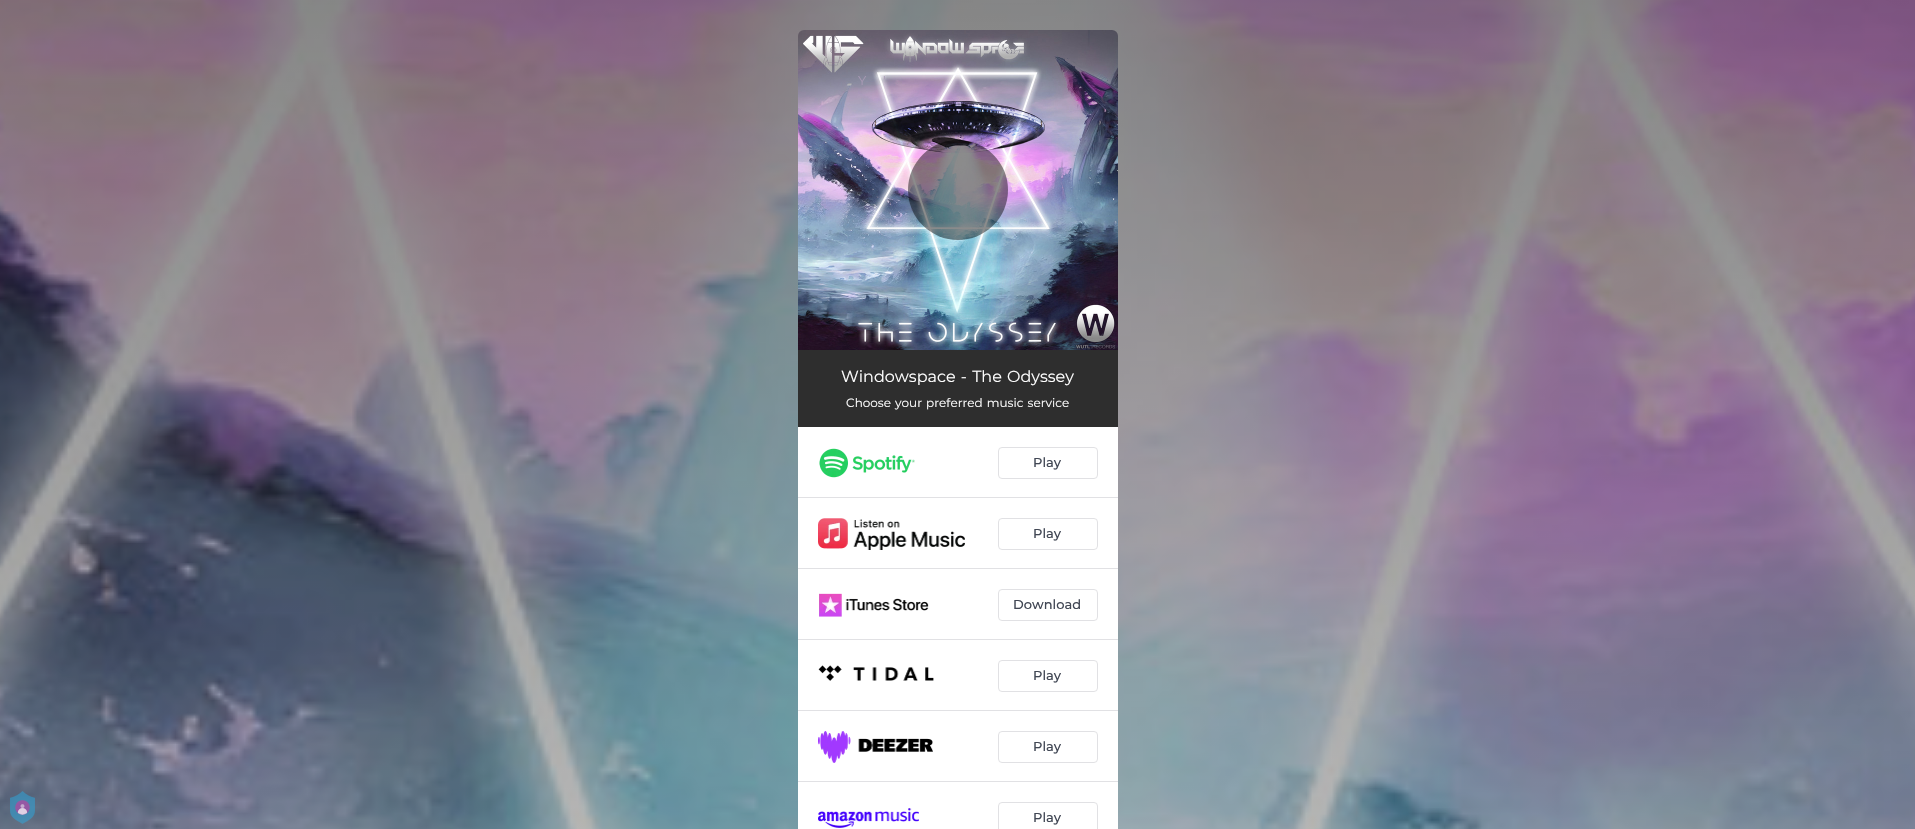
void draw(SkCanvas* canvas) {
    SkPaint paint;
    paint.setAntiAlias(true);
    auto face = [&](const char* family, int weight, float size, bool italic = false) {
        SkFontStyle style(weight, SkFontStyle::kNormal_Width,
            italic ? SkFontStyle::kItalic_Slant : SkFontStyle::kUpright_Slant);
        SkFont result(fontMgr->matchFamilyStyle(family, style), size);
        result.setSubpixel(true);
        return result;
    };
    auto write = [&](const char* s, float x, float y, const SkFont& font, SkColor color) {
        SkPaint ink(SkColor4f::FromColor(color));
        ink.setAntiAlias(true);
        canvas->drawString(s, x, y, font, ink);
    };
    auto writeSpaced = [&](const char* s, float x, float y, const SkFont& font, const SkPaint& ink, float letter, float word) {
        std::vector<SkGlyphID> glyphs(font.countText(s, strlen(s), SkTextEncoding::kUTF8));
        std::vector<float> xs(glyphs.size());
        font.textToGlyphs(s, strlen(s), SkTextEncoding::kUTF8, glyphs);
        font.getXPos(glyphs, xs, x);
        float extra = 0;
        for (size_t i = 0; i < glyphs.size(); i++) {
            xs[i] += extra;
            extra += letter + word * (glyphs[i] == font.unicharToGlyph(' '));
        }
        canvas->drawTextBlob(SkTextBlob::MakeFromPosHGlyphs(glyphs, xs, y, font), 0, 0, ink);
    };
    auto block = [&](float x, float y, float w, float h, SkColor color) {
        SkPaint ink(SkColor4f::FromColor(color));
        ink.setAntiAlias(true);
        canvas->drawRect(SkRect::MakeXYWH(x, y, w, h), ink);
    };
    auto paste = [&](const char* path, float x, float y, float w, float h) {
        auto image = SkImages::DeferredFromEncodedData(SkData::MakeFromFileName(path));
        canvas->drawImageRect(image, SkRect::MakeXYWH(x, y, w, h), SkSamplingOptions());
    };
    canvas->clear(SK_ColorWHITE);
    paste("pic2.png", 0, 0, 1915, 829);
    paste("pic1.png", 10, 791, 25, 33);
    paste("pic3.png", 798, 30, 320, 320);
    paint.setColor(SkColorSetARGB(115, 0, 0, 0));
    canvas->drawCircle(958, 190, 50, paint);
    auto kFont1 = face("Montserrat", 400, 13);
    paint.setColor(SkColorSetRGB(167, 152, 179));
    writeSpaced("Y", 858, 85, kFont1, paint, 0, 1);
    writeSpaced("'", 883, 85, kFont1, paint, 0, 1);
    block(798, 350, 320, 77, SkColorSetRGB(46, 46, 46));
    auto kFont2 = face("Montserrat", 400, 16);
    paint.setColor(SK_ColorWHITE);
    writeSpaced("Windowspace - The Odyssey", 841, 382, kFont2, paint, 0, 1);
    auto kFont3 = face("Montserrat", 400, 12);
    writeSpaced("Choose your preferred music service", 846, 407, kFont3, paint, 0, 1);
    block(798, 427, 320, 402, SK_ColorWHITE);
    block(798, 497, 320, 1, SkColorSetRGB(225, 225, 228));
    paste("pic4.png", 819, 448, 96, 30);
    paint.setStyle(SkPaint::kStroke_Style);
    paint.setStrokeWidth(1);
    paint.setColor(SkColorSetRGB(225, 225, 228));
    canvas->drawRoundRect(SkRect::MakeXYWH(998.5f, 447.5f, 99, 31), 3.5f, 3.5f, paint);
    auto kFont4 = face("Montserrat", 500, 13);
    write("Play", 1033, 467, kFont4, SkColorSetRGB(65, 71, 84));
    block(798, 568, 320, 1, SkColorSetRGB(225, 225, 228));
    paste("pic5.png", 818, 518, 147, 32);
    canvas->drawRoundRect(SkRect::MakeXYWH(998.5f, 518.5f, 99, 31), 3.5f, 3.5f, paint);
    write("Play", 1033, 538, kFont4, SkColorSetRGB(65, 71, 84));
    block(798, 639, 320, 1, SkColorSetRGB(225, 225, 228));
    paste("pic6.png", 819, 593, 110, 24);
    canvas->drawRoundRect(SkRect::MakeXYWH(998.5f, 589.5f, 99, 31), 3.5f, 3.5f, paint);
    write("Download", 1013, 609, kFont4, SkColorSetRGB(65, 71, 84));
    block(798, 710, 320, 1, SkColorSetRGB(225, 225, 228));
    paste("pic7.png", 818, 665, 116, 16);
    canvas->drawRoundRect(SkRect::MakeXYWH(998.5f, 660.5f, 99, 31), 3.5f, 3.5f, paint);
    write("Play", 1033, 680, kFont4, SkColorSetRGB(65, 71, 84));
    block(798, 781, 320, 1, SkColorSetRGB(225, 225, 228));
    paste("pic8.png", 818, 731, 115, 32);
    canvas->drawRoundRect(SkRect::MakeXYWH(998.5f, 731.5f, 99, 31), 3.5f, 3.5f, paint);
    write("Play", 1033, 751, kFont4, SkColorSetRGB(65, 71, 84));
    paste("pic9.png", 818, 808, 101, 20);
    canvas->drawRoundRect(SkRect::MakeXYWH(998.5f, 802.5f, 99, 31), 3.5f, 3.5f, paint);
    write("Play", 1033, 822, kFont4, SkColorSetRGB(65, 71, 84));
}
